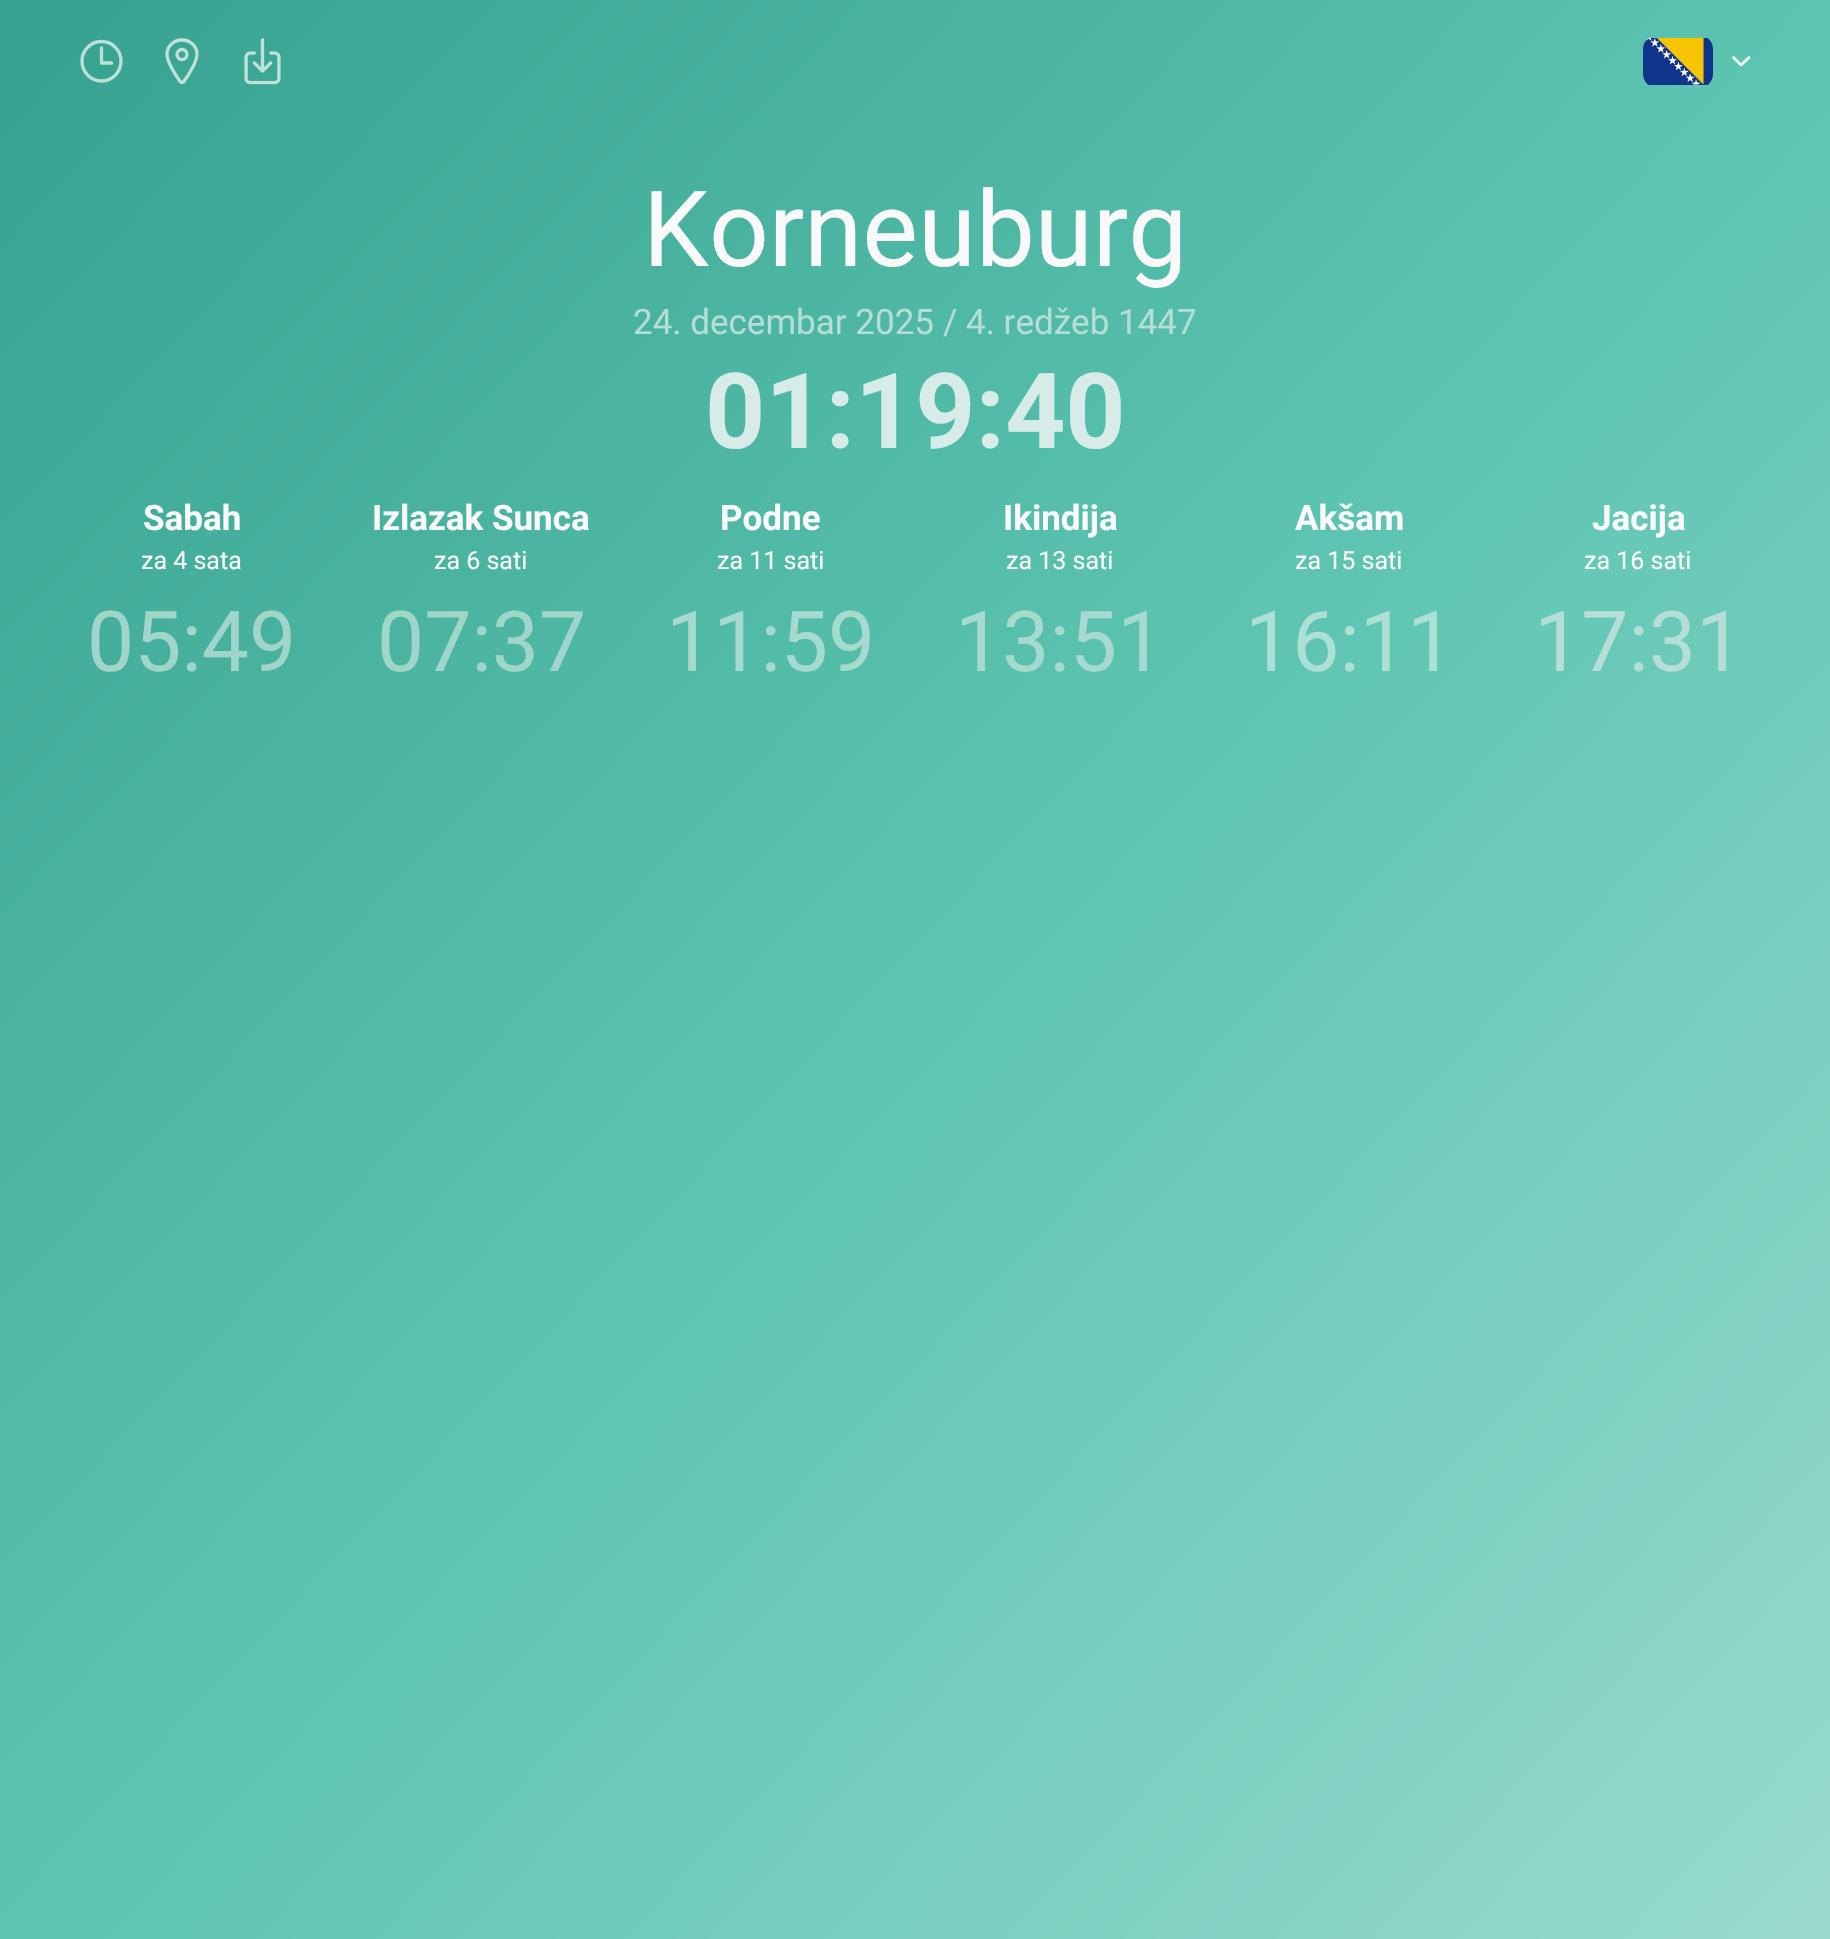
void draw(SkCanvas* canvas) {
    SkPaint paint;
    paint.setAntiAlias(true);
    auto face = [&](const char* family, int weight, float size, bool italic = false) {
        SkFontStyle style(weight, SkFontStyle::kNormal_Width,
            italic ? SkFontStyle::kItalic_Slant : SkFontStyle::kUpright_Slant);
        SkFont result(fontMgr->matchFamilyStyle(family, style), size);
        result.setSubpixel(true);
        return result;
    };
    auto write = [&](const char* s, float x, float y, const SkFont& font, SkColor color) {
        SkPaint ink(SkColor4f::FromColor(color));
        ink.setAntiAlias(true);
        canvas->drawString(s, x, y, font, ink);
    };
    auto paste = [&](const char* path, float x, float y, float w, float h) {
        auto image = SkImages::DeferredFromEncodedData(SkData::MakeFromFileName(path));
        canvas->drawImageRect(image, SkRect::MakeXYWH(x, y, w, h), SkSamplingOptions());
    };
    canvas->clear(SK_ColorWHITE);
    {
        const SkColor colors[] = {SkColorSetRGB(53, 161, 142), SkColorSetRGB(92, 196, 177), SkColorSetRGB(153, 218, 207)};
        const float stops[] = {0, 0.5f, 1};
        const SkPoint ends[] = {{-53, 56}, {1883, 1883}};
        paint.setShader(SkGradientShader::MakeLinear(ends, colors, stops, 3, SkTileMode::kClamp));
        paint.setAlpha(255);
    }
    canvas->drawRect(SkRect::MakeXYWH(0, 0, 1830, 1939), paint);
    paint.setStyle(SkPaint::kStroke_Style);
    paint.setStrokeWidth(3.3f);
    paint.setShader(nullptr);
    paint.setColor(SkColorSetRGB(191, 224, 218));
    canvas->drawPath(SkPathBuilder().moveTo(101.5f, 41.5f).cubicTo(90.5f, 41.5f, 82, 50.5f, 82, 61).cubicTo(82, 72, 90.5f, 81, 101.5f, 81).cubicTo(112.5f, 81, 121, 72, 121, 61).cubicTo(121, 50.5f, 112.5f, 41.5f, 101.5f, 41.5f).close().detach(), paint);
    paint.setStrokeCap(SkPaint::kRound_Cap);
    paint.setStrokeJoin(SkPaint::kRound_Join);
    canvas->drawPath(SkPathBuilder().moveTo(101.5f, 48).lineTo(101.5f, 63).lineTo(111.5f, 63).detach(), paint);
    paint.setColor(SkColorSetRGB(192, 224, 218));
    canvas->drawPath(SkPathBuilder().moveTo(182, 40).cubicTo(174, 40, 167, 46, 167, 54).cubicTo(167, 63, 177, 77, 180.5f, 82).lineTo(182, 82.5f).lineTo(183.5f, 82).cubicTo(187, 77, 197, 63, 197, 54).cubicTo(197, 46, 190, 40, 182, 40).close().detach(), paint);
    paint.setStrokeCap(SkPaint::kButt_Cap);
    paint.setStrokeJoin(SkPaint::kMiter_Join);
    canvas->drawCircle(182, 54.5f, 5, paint);
    paste("pic1.png", 244, 38, 37, 47);
    paste("pic2.png", 1643, 37, 70, 48);
    paint.setStrokeWidth(2.6f);
    paint.setStrokeCap(SkPaint::kRound_Cap);
    paint.setStrokeJoin(SkPaint::kRound_Join);
    paint.setColor(SkColorSetRGB(249, 249, 249));
    canvas->drawPath(SkPathBuilder().moveTo(1733.5f, 57.5f).lineTo(1741, 65).lineTo(1749, 57.5f).detach(), paint);
    auto kFont1 = face("Roboto", 400, 105);
    write("Korneuburg", 643, 266, kFont1, SkColorSetRGB(249, 249, 249));
    auto kFont2 = face("Roboto", 400, 35);
    write("24. decembar 2025", 633, 334, kFont2, SkColorSetRGB(180, 222, 215));
    write("/", 943, 334, kFont2, SkColorSetRGB(180, 222, 215));
    write("4. redžeb 1447", 966, 334, kFont2, SkColorSetRGB(180, 222, 215));
    auto kFont3 = face("Roboto", 700, 105);
    write("01:19:40", 705, 448, kFont3, SkColorSetRGB(215, 236, 233));
    auto kFont4 = face("Roboto", 700, 35);
    write("Sabah", 143, 530, kFont4, SkColorSetRGB(249, 249, 249));
    auto kFont5 = face("Roboto", 400, 25);
    write("za 4 sata", 141, 569, kFont5, SkColorSetRGB(249, 249, 249));
    auto kFont6 = face("Roboto", 400, 84);
    write("05:49", 87, 671, kFont6, SkColorSetRGB(160, 213, 203));
    write("Izlazak Sunca", 372, 530, kFont4, SkColorSetRGB(249, 249, 249));
    write("za 6 sati", 434, 569, kFont5, SkColorSetRGB(249, 249, 249));
    write("07:37", 377, 671, kFont6, SkColorSetRGB(160, 213, 203));
    write("Podne", 720, 530, kFont4, SkColorSetRGB(249, 249, 249));
    write("za 11 sati", 717, 569, kFont5, SkColorSetRGB(249, 249, 249));
    write("11:59", 666, 671, kFont6, SkColorSetRGB(166, 218, 209));
    write("Ikindija", 1003, 530, kFont4, SkColorSetRGB(249, 249, 249));
    write("za 13 sati", 1006, 569, kFont5, SkColorSetRGB(249, 249, 249));
    write("13:51", 955, 671, kFont6, SkColorSetRGB(166, 218, 209));
    write("Akšam", 1295, 530, kFont4, SkColorSetRGB(249, 249, 249));
    write("za 15 sati", 1295, 569, kFont5, SkColorSetRGB(249, 249, 249));
    write("16:11", 1245, 671, kFont6, SkColorSetRGB(172, 223, 214));
    write("Jacija", 1592, 530, kFont4, SkColorSetRGB(249, 249, 249));
    write("za 16 sati", 1584, 569, kFont5, SkColorSetRGB(249, 249, 249));
    write("17:31", 1534, 671, kFont6, SkColorSetRGB(180, 222, 215));
}
